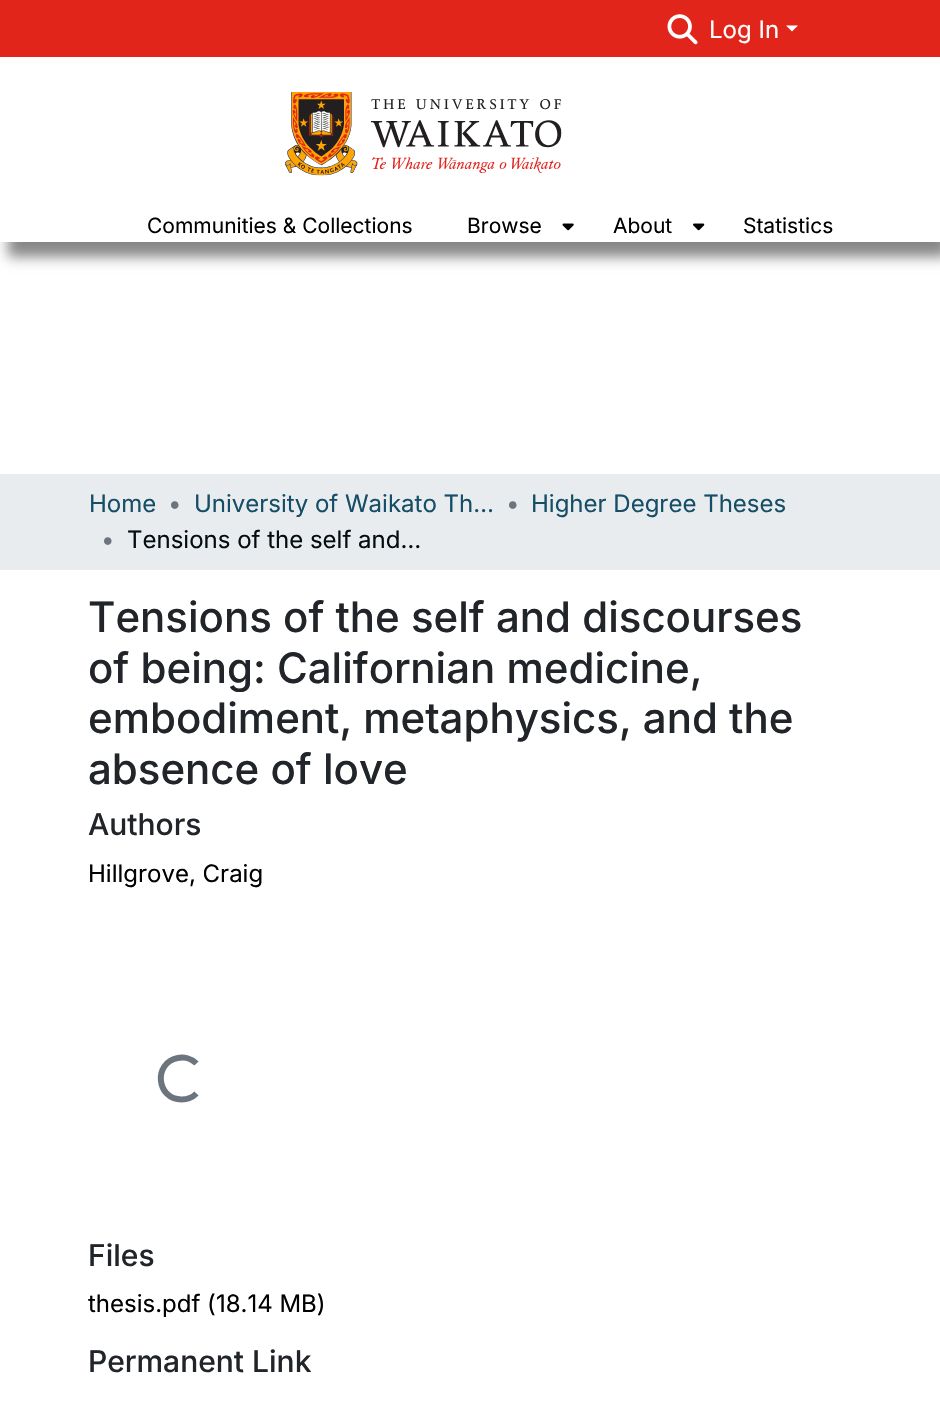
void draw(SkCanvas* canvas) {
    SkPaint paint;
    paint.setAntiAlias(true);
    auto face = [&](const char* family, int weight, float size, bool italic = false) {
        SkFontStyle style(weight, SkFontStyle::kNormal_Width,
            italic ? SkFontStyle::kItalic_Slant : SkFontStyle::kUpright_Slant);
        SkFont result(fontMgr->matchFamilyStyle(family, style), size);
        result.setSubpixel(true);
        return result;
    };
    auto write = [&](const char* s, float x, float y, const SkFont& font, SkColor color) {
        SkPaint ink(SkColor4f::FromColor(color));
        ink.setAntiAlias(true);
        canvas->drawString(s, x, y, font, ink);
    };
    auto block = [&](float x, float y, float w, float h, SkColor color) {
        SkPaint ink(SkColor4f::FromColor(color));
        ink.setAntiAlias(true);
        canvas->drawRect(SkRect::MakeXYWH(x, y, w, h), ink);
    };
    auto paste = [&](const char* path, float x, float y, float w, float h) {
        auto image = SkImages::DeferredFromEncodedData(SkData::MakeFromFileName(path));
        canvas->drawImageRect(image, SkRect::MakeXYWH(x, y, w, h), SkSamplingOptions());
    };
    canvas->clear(SK_ColorWHITE);
    canvas->save();
    canvas->clipPath(SkPathBuilder(SkPathFillType::kEvenOdd).moveTo(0, 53).lineTo(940, 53).lineTo(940, 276).lineTo(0, 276).close().moveTo(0, 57).lineTo(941, 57).lineTo(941, 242).lineTo(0, 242).close().detach(), true);
    paint.setColor(SkColorSetRGB(136, 136, 136));
    paint.setMaskFilter(SkMaskFilter::MakeBlur(kNormal_SkBlurStyle, 6));
    canvas->drawRect(SkRect::MakeXYWH(8, 72, 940, 185), paint);
    paint.setMaskFilter(nullptr);
    canvas->restore();
    block(0, 0, 940, 57, SkColorSetRGB(225, 37, 27));
    paste("pic1.png", 667, 14, 31, 31);
    auto kFont1 = face("Inter", 400, 24);
    write("Log In", 709, 38, kFont1, SK_ColorWHITE);
    paint.setColor(SK_ColorWHITE);
    canvas->drawPath(SkPathBuilder().moveTo(786, 25.5f).lineTo(798, 25.5f).lineTo(792, 31.5f).close().detach(), paint);
    paste("pic2.png", 285, 92, 277, 84);
    auto kFont2 = face("Inter", 400, 21);
    write("Communities & Collections", 147, 233, kFont2, SK_ColorBLACK);
    write("Browse", 467, 233, kFont2, SK_ColorBLACK);
    paste("pic3.png", 562, 223, 12, 8);
    write("About", 613, 233, kFont2, SK_ColorBLACK);
    paste("pic4.png", 693, 223, 12, 8);
    write("Statistics", 743, 233, kFont2, SK_ColorBLACK);
    block(0, 474, 940, 96, SkColorSetRGB(233, 236, 239));
    write("Home", 89, 512, kFont1, SkColorSetRGB(21, 78, 102));
    write("•", 168, 512, kFont1, SkColorSetRGB(108, 117, 125));
    write("University of Waikato Th…", 194, 512, kFont1, SkColorSetRGB(21, 78, 102));
    write("•", 506, 512, kFont1, SkColorSetRGB(108, 117, 125));
    write("Higher Degree Theses", 531, 512, kFont1, SkColorSetRGB(21, 78, 102));
    write("•", 101, 548, kFont1, SkColorSetRGB(108, 117, 125));
    write("Tensions of the self and…", 127, 548, kFont1, SkColorSetRGB(4, 13, 17));
    auto kFont3 = face("Inter", 500, 42);
    write("Tensions of the self and discourses", 88, 632, kFont3, SkColorSetRGB(33, 37, 41));
    write("of being: Californian medicine,", 88, 683, kFont3, SkColorSetRGB(33, 37, 41));
    write("embodiment, metaphysics, and the", 88, 733, kFont3, SkColorSetRGB(33, 37, 41));
    write("absence of love", 88, 784, kFont3, SkColorSetRGB(33, 37, 41));
    auto kFont4 = face("Inter", 500, 30);
    write("Authors", 88, 835, kFont4, SkColorSetRGB(33, 37, 41));
    write("Hillgrove, Craig", 88, 882, kFont1, SK_ColorBLACK);
    paint.setStyle(SkPaint::kStroke_Style);
    paint.setStrokeWidth(6);
    paint.setColor(SkColorSetRGB(108, 117, 125));
    canvas->drawPath(SkPathBuilder().moveTo(196.5f, 1093.5f).cubicTo(192.5f, 1097.5f, 187, 1099.5f, 181.5f, 1099.5f).cubicTo(156.5f, 1099.5f, 153, 1063, 177.5f, 1058).cubicTo(184, 1056.5f, 191.5f, 1058.5f, 196.5f, 1063.5f).detach(), paint);
    write("Files", 88, 1266, kFont4, SkColorSetRGB(33, 37, 41));
    write("thesis.pdf (18.14 MB)", 88, 1312, kFont1, SK_ColorBLACK);
    write("Permanent Link", 88, 1372, kFont4, SkColorSetRGB(33, 37, 41));
}
